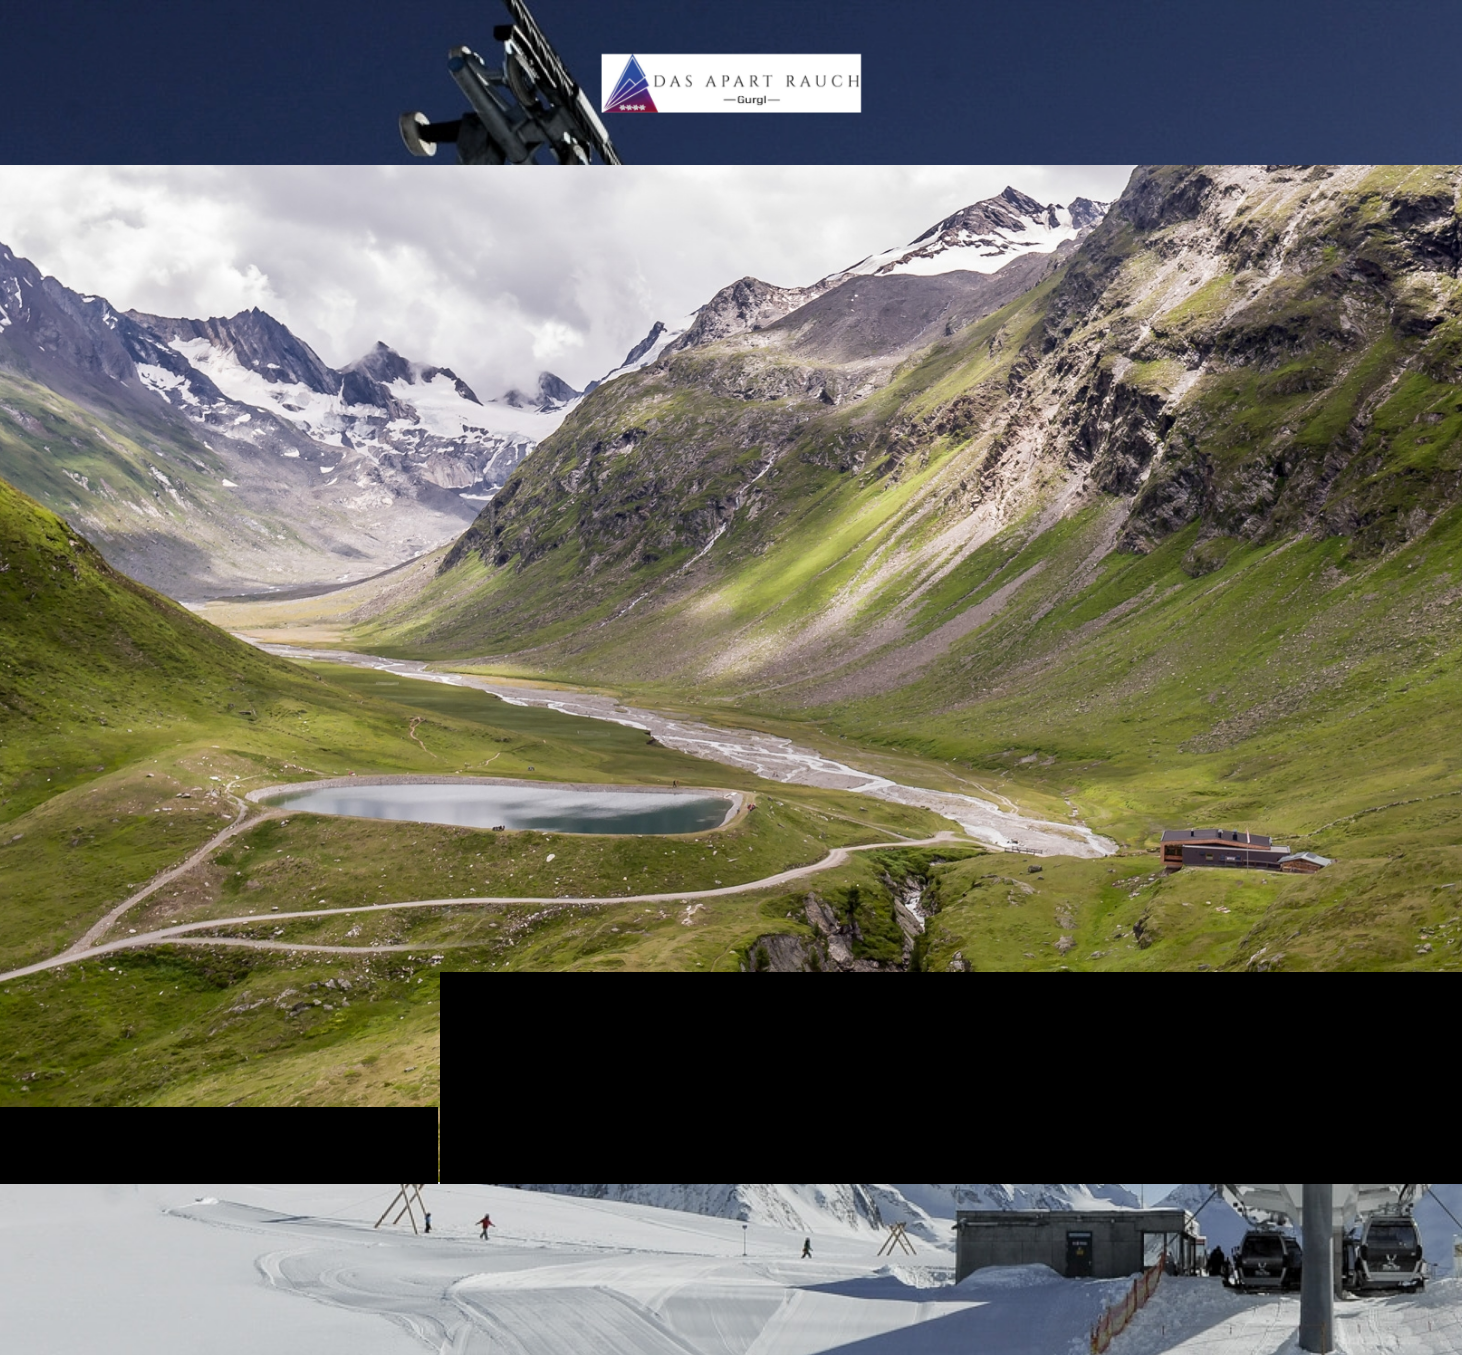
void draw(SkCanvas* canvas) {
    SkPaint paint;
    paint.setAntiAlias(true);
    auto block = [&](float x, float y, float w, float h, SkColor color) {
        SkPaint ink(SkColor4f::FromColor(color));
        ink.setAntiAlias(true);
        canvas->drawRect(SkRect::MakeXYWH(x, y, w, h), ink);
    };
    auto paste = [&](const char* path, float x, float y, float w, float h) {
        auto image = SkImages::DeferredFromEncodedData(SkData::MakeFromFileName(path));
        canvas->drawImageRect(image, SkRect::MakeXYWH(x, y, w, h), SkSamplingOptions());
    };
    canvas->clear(SK_ColorWHITE);
    paste("pic1.png", 0, 0, 1462, 1355);
    paste("pic2.png", 601, 53, 261, 60);
    paste("pic3.png", 0, 165, 1462, 1017);
    block(0, 1107, 438, 77, SK_ColorBLACK);
    block(440, 972, 1022, 212, SK_ColorBLACK);
}
